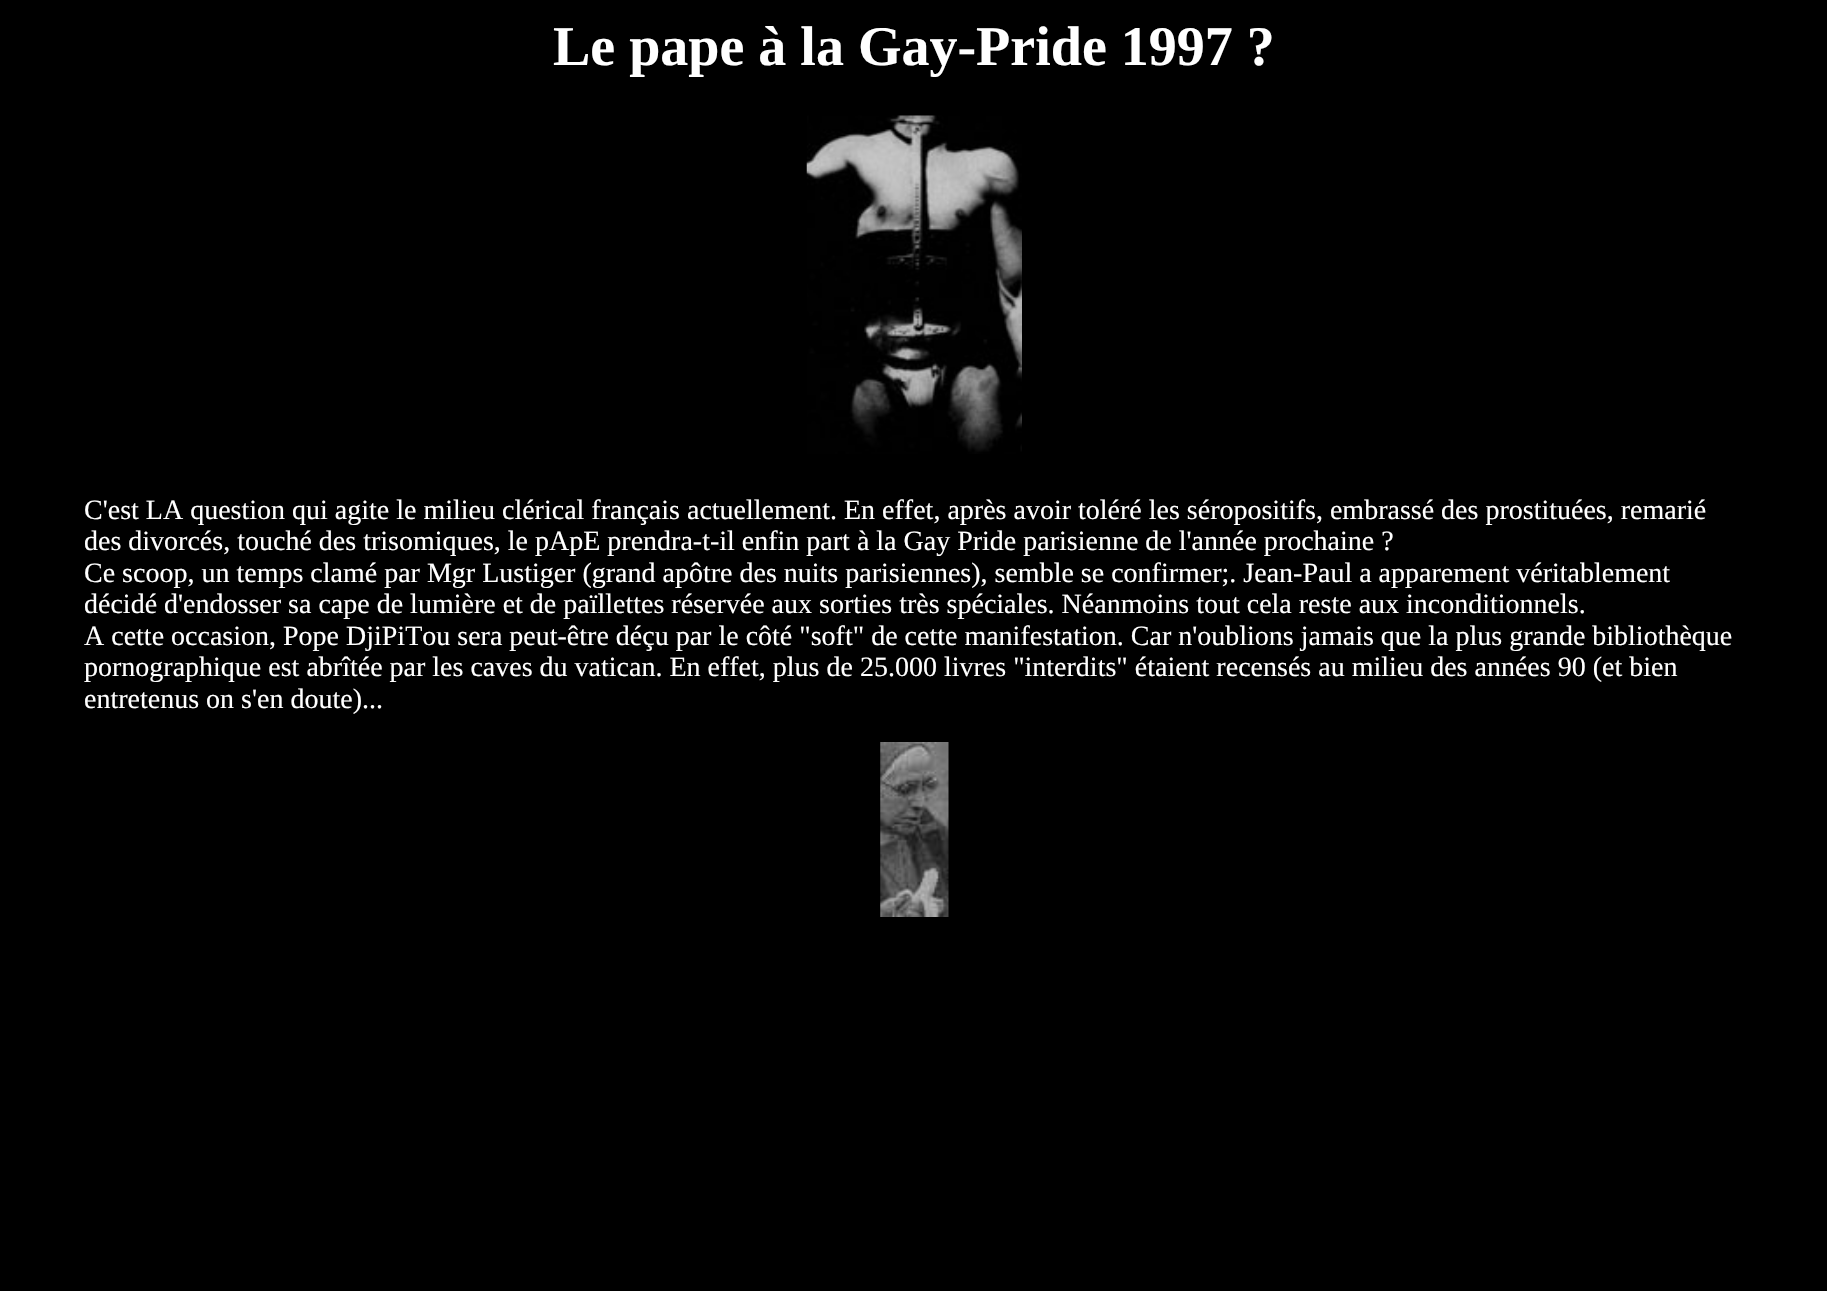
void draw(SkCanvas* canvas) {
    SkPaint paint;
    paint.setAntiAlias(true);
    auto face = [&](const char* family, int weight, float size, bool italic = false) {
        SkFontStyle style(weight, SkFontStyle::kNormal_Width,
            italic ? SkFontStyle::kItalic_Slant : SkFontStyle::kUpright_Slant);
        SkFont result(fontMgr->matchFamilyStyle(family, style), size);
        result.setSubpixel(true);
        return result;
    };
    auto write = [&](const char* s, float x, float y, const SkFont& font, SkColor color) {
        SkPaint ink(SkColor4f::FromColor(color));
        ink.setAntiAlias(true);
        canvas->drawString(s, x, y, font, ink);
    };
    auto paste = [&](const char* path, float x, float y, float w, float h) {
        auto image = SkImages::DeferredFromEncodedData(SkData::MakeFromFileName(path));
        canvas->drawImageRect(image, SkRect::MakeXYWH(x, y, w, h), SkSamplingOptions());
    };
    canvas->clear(SK_ColorBLACK);
    auto kFont1 = face("Liberation Serif", 700, 56);
    write("Le pape à la Gay-Pride 1997 ?", 553, 65, kFont1, SK_ColorWHITE);
    paste("pic1.png", 806, 115, 216, 339);
    auto kFont2 = face("Liberation Serif", 400, 28);
    write("C'est LA question qui agite le milieu clérical français actuellement. En effet, après avoir toléré les séropositifs, embrassé des prostituées, remarié", 84, 519, kFont2, SK_ColorWHITE);
    write("des divorcés, touché des trisomiques, le pApE prendra-t-il enfin part à la Gay Pride parisienne de l'année prochaine ?", 84, 550, kFont2, SK_ColorWHITE);
    write("Ce scoop, un temps clamé par Mgr Lustiger (grand apôtre des nuits parisiennes), semble se confirmer;. Jean-Paul a apparement véritablement", 84, 582, kFont2, SK_ColorWHITE);
    write("décidé d'endosser sa cape de lumière et de païllettes réservée aux sorties très spéciales. Néanmoins tout cela reste aux inconditionnels.", 84, 613, kFont2, SK_ColorWHITE);
    write("A cette occasion, Pope DjiPiTou sera peut-être déçu par le côté \"soft\" de cette manifestation. Car n'oublions jamais que la plus grande bibliothèque", 84, 645, kFont2, SK_ColorWHITE);
    write("pornographique est abrîtée par les caves du vatican. En effet, plus de 25.000 livres \"interdits\" étaient recensés au milieu des années 90 (et bien", 84, 676, kFont2, SK_ColorWHITE);
    write("entretenus on s'en doute)...", 84, 708, kFont2, SK_ColorWHITE);
    paste("pic2.png", 880, 742, 69, 175);
}
